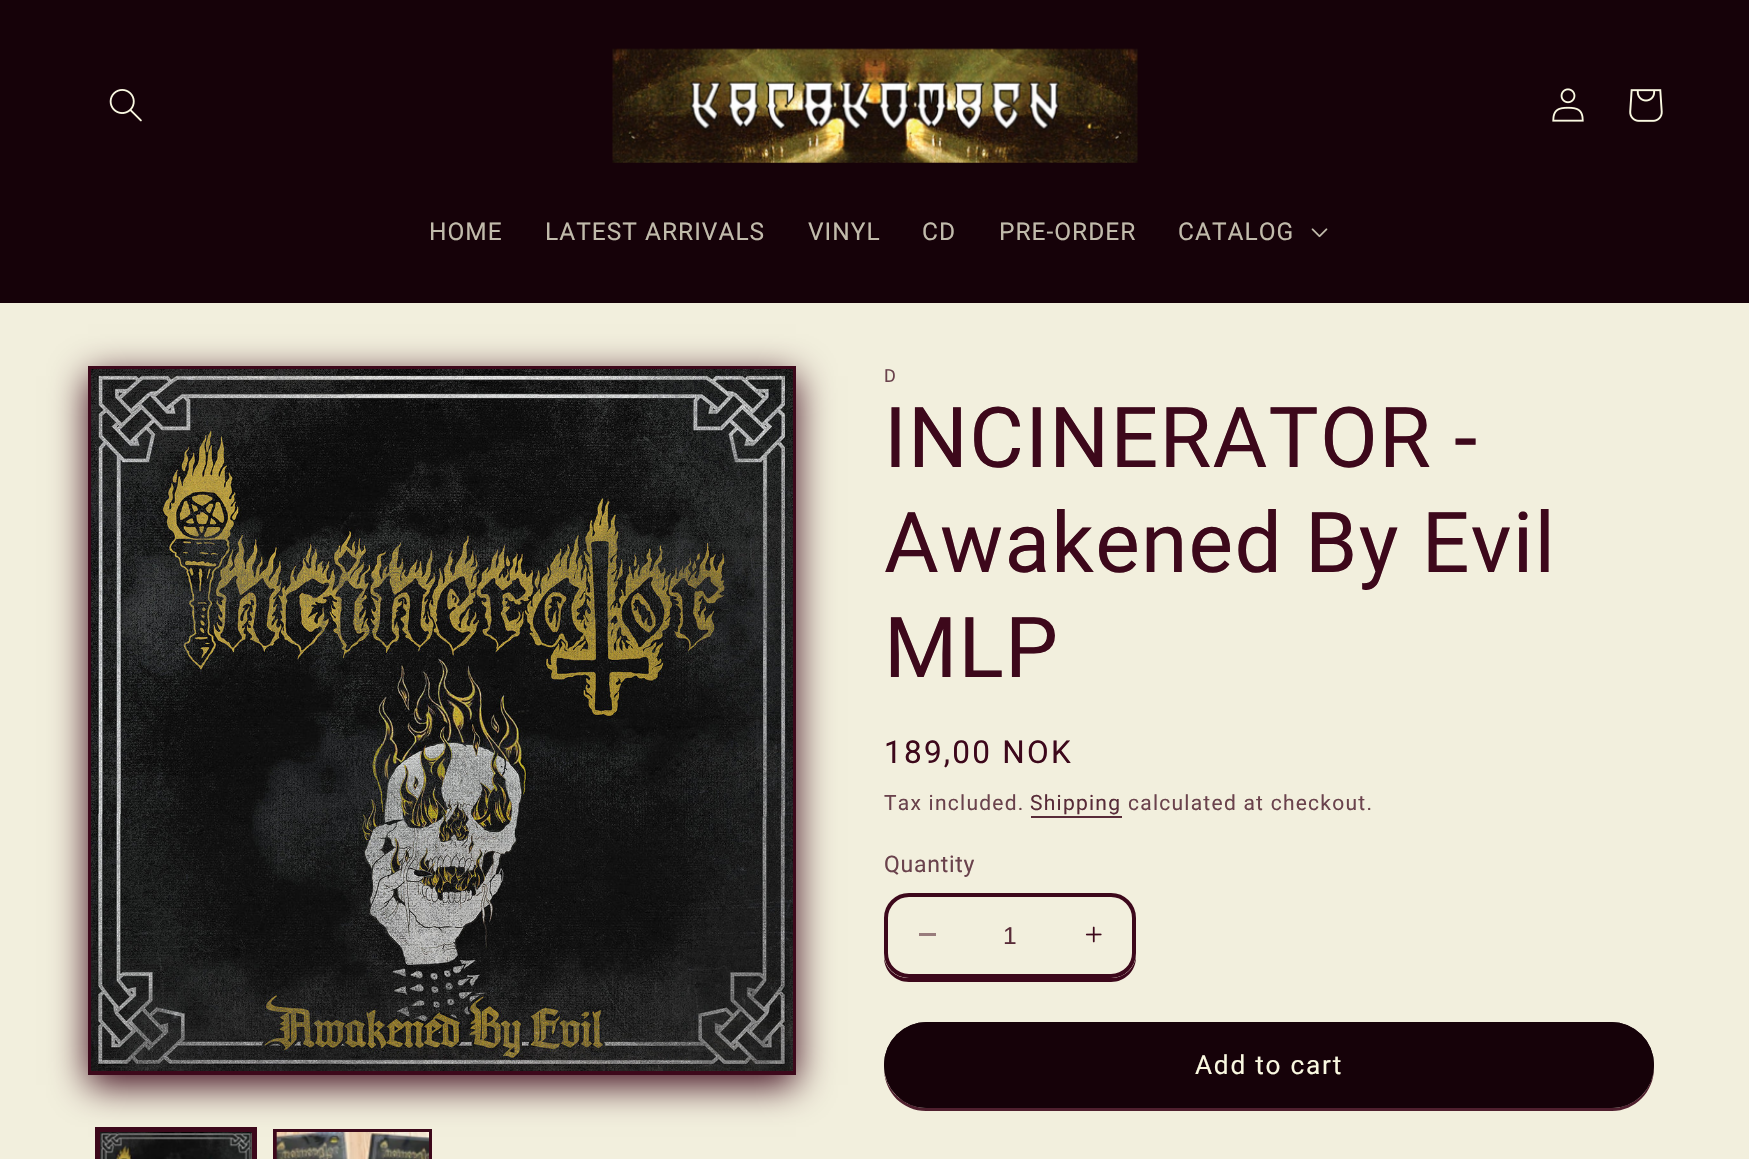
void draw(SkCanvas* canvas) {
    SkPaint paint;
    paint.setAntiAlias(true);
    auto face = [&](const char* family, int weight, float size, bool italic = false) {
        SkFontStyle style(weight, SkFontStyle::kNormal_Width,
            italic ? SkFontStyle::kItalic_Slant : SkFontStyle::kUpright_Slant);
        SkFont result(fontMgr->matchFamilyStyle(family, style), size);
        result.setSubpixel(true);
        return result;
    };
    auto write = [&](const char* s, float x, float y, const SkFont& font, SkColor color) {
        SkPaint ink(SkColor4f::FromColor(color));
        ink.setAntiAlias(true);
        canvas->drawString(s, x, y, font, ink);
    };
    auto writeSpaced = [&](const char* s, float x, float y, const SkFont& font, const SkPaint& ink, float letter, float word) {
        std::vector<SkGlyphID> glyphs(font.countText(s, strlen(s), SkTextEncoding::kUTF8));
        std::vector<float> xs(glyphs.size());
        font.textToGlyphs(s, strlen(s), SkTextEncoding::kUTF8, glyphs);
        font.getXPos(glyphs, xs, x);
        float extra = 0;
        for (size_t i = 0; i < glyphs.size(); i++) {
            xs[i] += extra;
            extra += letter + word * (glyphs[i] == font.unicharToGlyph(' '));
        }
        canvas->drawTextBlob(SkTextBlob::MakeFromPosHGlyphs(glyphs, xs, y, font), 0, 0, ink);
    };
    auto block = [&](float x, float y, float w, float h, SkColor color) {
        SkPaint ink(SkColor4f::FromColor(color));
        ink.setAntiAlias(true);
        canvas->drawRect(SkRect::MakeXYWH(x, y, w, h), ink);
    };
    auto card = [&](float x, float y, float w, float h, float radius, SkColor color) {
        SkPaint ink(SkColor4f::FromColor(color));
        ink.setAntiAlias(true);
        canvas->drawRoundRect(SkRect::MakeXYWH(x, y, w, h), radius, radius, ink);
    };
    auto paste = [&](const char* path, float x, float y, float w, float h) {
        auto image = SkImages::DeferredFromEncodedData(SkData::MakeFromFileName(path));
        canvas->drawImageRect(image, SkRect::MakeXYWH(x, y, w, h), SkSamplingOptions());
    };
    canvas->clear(SkColorSetRGB(242, 239, 221));
    block(0, 0, 1749, 303, SkColorSetRGB(22, 2, 9));
    paste("pic1.png", 109, 89, 33, 33);
    paste("pic2.png", 612, 48, 526, 115);
    paste("pic3.png", 1552, 88, 32, 34);
    paste("pic4.png", 1629, 89, 34, 33);
    auto kFont1 = face("Roboto", 400, 24.5f);
    paint.setColor(SkColorSetRGB(193, 187, 171));
    writeSpaced("HOME", 429, 240, kFont1, paint, 1, 0);
    writeSpaced("LATEST ARRIVALS", 545, 240, kFont1, paint, 1, 0);
    writeSpaced("VINYL", 808, 240, kFont1, paint, 1, 0);
    writeSpaced("CD", 922, 240, kFont1, paint, 1, 0);
    writeSpaced("PRE-ORDER", 999, 240, kFont1, paint, 1, 0);
    writeSpaced("CATALOG", 1178, 240, kFont1, paint, 1, 0);
    paste("pic5.png", 1311, 228, 17, 10);
    paint.setColor(SkColorSetRGB(61, 8, 27));
    paint.setMaskFilter(SkMaskFilter::MakeBlur(kNormal_SkBlurStyle, 17.5f));
    canvas->drawRect(SkRect::MakeXYWH(88, 376, 708, 709), paint);
    paint.setMaskFilter(nullptr);
    paint.setStyle(SkPaint::kStroke_Style);
    paint.setStrokeWidth(4);
    canvas->drawRect(SkRect::MakeXYWH(90, 368, 704, 705), paint);
    paste("pic6.png", 91, 369, 702, 702);
    paint.setStrokeWidth(2);
    canvas->drawRect(SkRect::MakeXYWH(96, 1128, 160, 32), paint);
    paint.setStrokeWidth(4);
    canvas->drawRect(SkRect::MakeXYWH(98, 1131, 156, 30), paint);
    paste("pic7.png", 100, 1132, 152, 27);
    canvas->drawRect(SkRect::MakeXYWH(275, 1131, 155, 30), paint);
    paste("pic8.png", 276, 1132, 153, 27);
    auto kFont2 = face("Roboto", 400, 18);
    paint.setStyle(SkPaint::kFill_Style);
    paint.setColor(SkColorSetRGB(106, 66, 76));
    writeSpaced("D", 884, 382, kFont2, paint, 2.25f, 0);
    auto kFont3 = face("Roboto", 400, 84);
    paint.setColor(SkColorSetRGB(61, 8, 27));
    writeSpaced("INCINERATOR -", 884, 467, kFont3, paint, 1.25f, 0);
    writeSpaced("Awakened By Evil", 884, 572, kFont3, paint, 1.25f, 0);
    writeSpaced("MLP", 884, 677, kFont3, paint, 1.25f, 0);
    auto kFont4 = face("Roboto", 400, 31.5f);
    writeSpaced("189,00 NOK", 884, 763, kFont4, paint, 2.25f, 0);
    auto kFont5 = face("Roboto", 400, 21);
    paint.setColor(SkColorSetRGB(106, 66, 76));
    writeSpaced("Tax included.", 884, 810, kFont5, paint, 1.25f, 0);
    paint.setColor(SkColorSetRGB(88, 43, 56));
    writeSpaced("Shipping", 1030, 810, kFont5, paint, 1.25f, 0);
    block(1031, 816, 91, 2, SkColorSetRGB(88, 43, 56));
    paint.setColor(SkColorSetRGB(106, 66, 76));
    writeSpaced("calculated at checkout.", 1128, 810, kFont5, paint, 1.25f, 0);
    auto kFont6 = face("Roboto", 400, 23);
    writeSpaced("Quantity", 884, 872, kFont6, paint, 0.75f, 0);
    paint.setColor(SkColorSetRGB(61, 8, 27));
    canvas->drawPath(SkPathBuilder().moveTo(884, 957).cubicTo(884, 971, 895, 982, 909, 982).lineTo(1111, 982).cubicTo(1125, 982, 1136, 971, 1136, 957).lineTo(1136, 917).lineTo(1136, 954).cubicTo(1136, 967, 1125, 978, 1111, 978).lineTo(908, 978).cubicTo(896, 978, 886, 969, 884, 957).close().detach(), paint);
    card(884, 893, 252, 85, 25, SkColorSetRGB(242, 239, 221));
    block(919, 933, 17, 3, SkColorSetRGB(152, 124, 124));
    paste("pic9.png", 1085, 926, 17, 17);
    paint.setStyle(SkPaint::kStroke_Style);
    canvas->drawRoundRect(SkRect::MakeXYWH(886, 895, 248, 81), 23, 23, paint);
    auto kFont7 = face("Liberation Sans", 400, 24.5f);
    write("1", 1003, 944, kFont7, SkColorSetRGB(88, 43, 56));
    paint.setStyle(SkPaint::kFill_Style);
    paint.setColor(SkColorSetRGB(79, 31, 46));
    canvas->drawPath(SkPathBuilder().moveTo(884, 1070).cubicTo(885, 1093, 903, 1111, 926, 1111).lineTo(1612, 1111).cubicTo(1635, 1111, 1654, 1092, 1654, 1068).lineTo(1654, 1064).lineTo(1654, 1065).cubicTo(1654, 1089, 1635, 1108, 1611, 1108).lineTo(927, 1108).cubicTo(905, 1108, 886, 1091, 884, 1070).close().detach(), paint);
    card(884, 1022, 770, 86, 43, SkColorSetRGB(22, 2, 9));
    paint.setStyle(SkPaint::kStroke_Style);
    paint.setColor(SkColorSetRGB(22, 2, 9));
    canvas->drawRoundRect(SkRect::MakeXYWH(886, 1024, 766, 82), 41, 41, paint);
    auto kFont8 = face("Roboto", 400, 26.25f);
    paint.setStyle(SkPaint::kFill_Style);
    paint.setColor(SkColorSetRGB(250, 249, 225));
    writeSpaced("Add to cart", 1195, 1074, kFont8, paint, 1.75f, 0);
}
